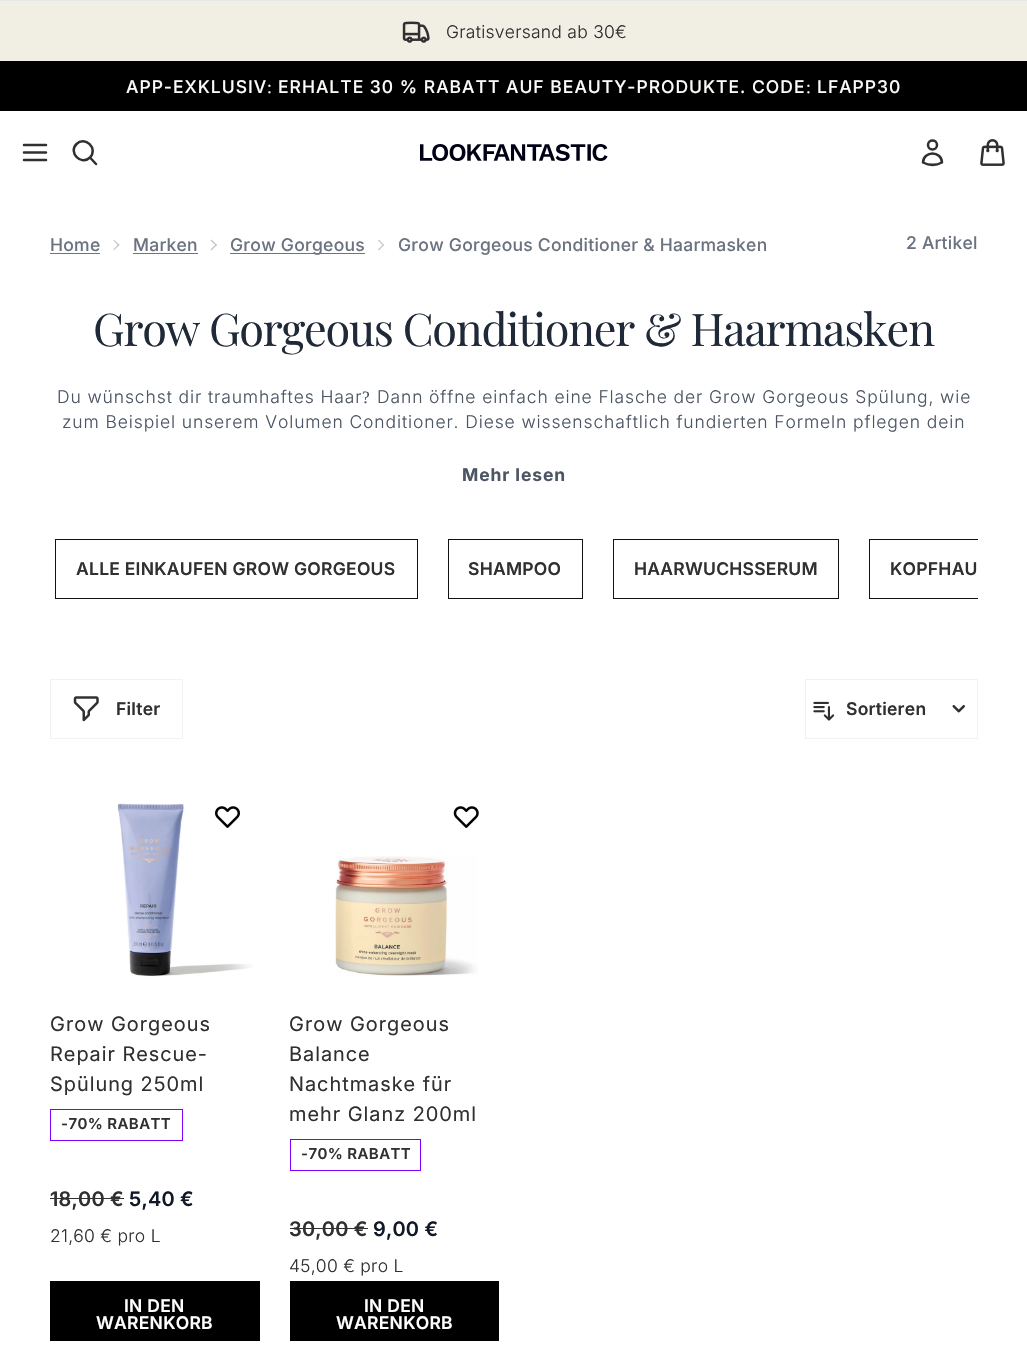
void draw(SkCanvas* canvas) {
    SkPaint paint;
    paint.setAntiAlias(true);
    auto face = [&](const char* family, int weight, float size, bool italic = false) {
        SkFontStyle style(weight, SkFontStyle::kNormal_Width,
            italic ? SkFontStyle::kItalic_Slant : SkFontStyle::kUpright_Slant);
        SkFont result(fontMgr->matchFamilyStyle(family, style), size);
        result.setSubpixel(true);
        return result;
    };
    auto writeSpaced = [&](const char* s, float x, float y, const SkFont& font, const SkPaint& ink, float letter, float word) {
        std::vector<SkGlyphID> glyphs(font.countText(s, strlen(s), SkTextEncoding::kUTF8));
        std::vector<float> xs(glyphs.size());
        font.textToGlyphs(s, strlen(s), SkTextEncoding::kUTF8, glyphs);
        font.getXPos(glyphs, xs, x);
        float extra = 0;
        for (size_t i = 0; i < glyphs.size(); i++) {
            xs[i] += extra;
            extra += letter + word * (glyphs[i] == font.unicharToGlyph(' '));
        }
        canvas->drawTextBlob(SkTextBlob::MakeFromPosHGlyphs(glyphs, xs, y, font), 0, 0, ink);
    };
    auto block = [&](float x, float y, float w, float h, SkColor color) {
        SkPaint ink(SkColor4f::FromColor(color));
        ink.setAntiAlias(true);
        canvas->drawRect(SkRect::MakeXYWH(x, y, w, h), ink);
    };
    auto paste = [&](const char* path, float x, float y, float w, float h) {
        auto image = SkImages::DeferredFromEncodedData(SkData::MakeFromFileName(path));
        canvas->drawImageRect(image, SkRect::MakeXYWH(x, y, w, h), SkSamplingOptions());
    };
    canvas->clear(SK_ColorWHITE);
    block(0, 1, 1027, 60, SkColorSetRGB(241, 238, 228));
    block(0, 0, 1027, 1, SkColorSetRGB(229, 231, 235));
    paste("pic1.png", 402, 21, 28, 22);
    auto kFont1 = face("Inter", 300, 17.5f);
    paint.setColor(SkColorSetRGB(48, 48, 48));
    writeSpaced("Gratisversand ab 30€", 446, 38, kFont1, paint, 0.25f, 0);
    block(0, 61, 1027, 50, SK_ColorBLACK);
    auto kFont2 = face("Inter", 500, 17.5f);
    paint.setColor(SkColorSetRGB(251, 251, 249));
    writeSpaced("APP-EXKLUSIV", 126, 93, kFont2, paint, 1, 0);
    auto kFont3 = face("Liberation Serif", 400, 17.5f);
    writeSpaced(":", 267, 93, kFont3, paint, 1, 0);
    writeSpaced("ERHALTE 30 % RABATT AUF BEAUTY-PRODUKTE. CODE", 278, 93, kFont2, paint, 1, 0);
    writeSpaced(":", 806, 93, kFont3, paint, 1, 0);
    writeSpaced("LFAPP30", 817, 93, kFont2, paint, 1, 0);
    paint.setStyle(SkPaint::kStroke_Style);
    paint.setStrokeWidth(2.5f);
    paint.setStrokeCap(SkPaint::kRound_Cap);
    paint.setStrokeJoin(SkPaint::kRound_Join);
    paint.setColor(SkColorSetRGB(48, 48, 48));
    canvas->drawPath(SkPathBuilder().moveTo(24, 152.5f).lineTo(46, 152.5f).moveTo(24, 145).lineTo(46, 145).moveTo(24, 160).lineTo(46, 160).detach(), paint);
    canvas->drawPath(SkPathBuilder().moveTo(96, 164).lineTo(90, 157.5f).moveTo(90, 157.5f).cubicTo(98.5f, 148.5f, 85, 135.5f, 76.5f, 144).cubicTo(68, 152.5f, 81, 166, 90, 157.5f).close().detach(), paint);
    paste("pic2.png", 420, 144, 188, 17);
    canvas->drawPath(SkPathBuilder().moveTo(937, 145).cubicTo(937, 151, 928, 151, 928, 145).cubicTo(928, 139, 937, 139, 937, 145).close().moveTo(923, 162.5f).cubicTo(923.5f, 150.5f, 941.5f, 150.5f, 942, 162.5f).cubicTo(936, 165.5f, 929, 165.5f, 923, 162.5f).close().detach(), paint);
    paste("pic3.png", 980, 139, 25, 27);
    paint.setStyle(SkPaint::kFill_Style);
    paint.setColor(SkColorSetRGB(107, 114, 128));
    writeSpaced("Home", 50, 251, kFont2, paint, 0.25f, 0);
    block(50, 253, 50, 1, SkColorSetRGB(107, 114, 128));
    paint.setColor(SkColorSetRGB(196, 199, 204));
    canvas->drawPath(SkPathBuilder().moveTo(114, 239.5f).lineTo(119.5f, 245).lineTo(118.5f, 246).lineTo(113.5f, 240.5f).close().detach(), paint);
    canvas->drawPath(SkPathBuilder().moveTo(118.5f, 244).lineTo(119.5f, 245).lineTo(114, 250.5f).lineTo(113.5f, 249.5f).close().detach(), paint);
    paint.setColor(SkColorSetRGB(107, 114, 128));
    writeSpaced("Marken", 133, 251, kFont2, paint, 0.25f, 0);
    block(133, 253, 65, 1, SkColorSetRGB(107, 114, 128));
    paint.setColor(SkColorSetRGB(196, 199, 204));
    canvas->drawPath(SkPathBuilder().moveTo(211.5f, 239.5f).lineTo(217, 245).lineTo(216, 246).lineTo(210.5f, 240.5f).close().detach(), paint);
    canvas->drawPath(SkPathBuilder().moveTo(216, 244).lineTo(217, 245).lineTo(211.5f, 250.5f).lineTo(210.5f, 249.5f).close().detach(), paint);
    block(230, 253, 135, 1, SkColorSetRGB(107, 114, 128));
    paint.setColor(SkColorSetRGB(107, 114, 128));
    writeSpaced("Grow Gorgeous", 230, 251, kFont2, paint, 0.25f, 0);
    paint.setColor(SkColorSetRGB(196, 199, 204));
    canvas->drawPath(SkPathBuilder().moveTo(379, 239.5f).lineTo(384, 245).lineTo(383.5f, 246).lineTo(378, 240.5f).close().detach(), paint);
    canvas->drawPath(SkPathBuilder().moveTo(383.5f, 244).lineTo(384, 245).lineTo(379, 250.5f).lineTo(378, 249.5f).close().detach(), paint);
    paint.setColor(SkColorSetRGB(107, 114, 128));
    writeSpaced("Grow Gorgeous Conditioner & Haarmasken", 398, 251, kFont2, paint, 0.25f, 0);
    writeSpaced("2 Artikel", 906, 249, kFont2, paint, 0.25f, 0);
    auto kFont4 = face("Playfair Display", 400, 45);
    paint.setColor(SkColorSetRGB(31, 41, 55));
    writeSpaced("Grow Gorgeous Conditioner & Haarmasken", 93, 346, kFont4, paint, -1.25f, 0);
    paint.setColor(SkColorSetRGB(75, 85, 99));
    writeSpaced("Du wünschst dir traumhaftes Haar", 57, 403, kFont1, paint, 0.88f, 0);
    writeSpaced("?", 362, 403, kFont3, paint, 0.88f, 0);
    writeSpaced("Dann öffne einfach eine Flasche der Grow Gorgeous Spülung, wie", 377, 403, kFont1, paint, 0.88f, 0);
    writeSpaced("zum Beispiel unserem Volumen Conditioner. Diese wissenschaftlich fundierten Formeln pflegen dein", 62, 428, kFont1, paint, 0.88f, 0);
    auto kFont5 = face("Inter", 700, 17.5f);
    writeSpaced("Mehr lesen", 462, 481, kFont5, paint, 0.88f, 0);
    paint.setStyle(SkPaint::kStroke_Style);
    paint.setStrokeWidth(1);
    paint.setStrokeCap(SkPaint::kButt_Cap);
    paint.setStrokeJoin(SkPaint::kMiter_Join);
    paint.setColor(SkColorSetRGB(18, 18, 18));
    canvas->drawRect(SkRect::MakeXYWH(55.5f, 539.5f, 362, 59), paint);
    auto kFont6 = face("Inter", 600, 17.5f);
    paint.setStyle(SkPaint::kFill_Style);
    paint.setColor(SkColorSetRGB(48, 48, 48));
    writeSpaced("ALLE EINKAUFEN GROW GORGEOUS", 76, 575, kFont6, paint, 0.25f, 0);
    paint.setStyle(SkPaint::kStroke_Style);
    paint.setColor(SkColorSetRGB(18, 18, 18));
    canvas->drawRect(SkRect::MakeXYWH(448.5f, 539.5f, 134, 59), paint);
    paint.setStyle(SkPaint::kFill_Style);
    paint.setColor(SkColorSetRGB(48, 48, 48));
    writeSpaced("SHAMPOO", 468, 575, kFont6, paint, 0.25f, 0);
    paint.setStyle(SkPaint::kStroke_Style);
    paint.setColor(SkColorSetRGB(18, 18, 18));
    canvas->drawRect(SkRect::MakeXYWH(613.5f, 539.5f, 225, 59), paint);
    paint.setStyle(SkPaint::kFill_Style);
    paint.setColor(SkColorSetRGB(48, 48, 48));
    writeSpaced("HAARWUCHSSERUM", 634, 575, kFont6, paint, 0.25f, 0);
    canvas->save();
    canvas->clipRect(SkRect::MakeXYWH(50, 534, 928, 70));
    paint.setStyle(SkPaint::kStroke_Style);
    paint.setColor(SkColorSetRGB(18, 18, 18));
    canvas->drawRect(SkRect::MakeXYWH(869.5f, 539.5f, 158, 59), paint);
    canvas->restore();
    paint.setStyle(SkPaint::kFill_Style);
    paint.setColor(SkColorSetRGB(48, 48, 48));
    writeSpaced("KOPFHAU", 890, 575, kFont6, paint, 0.25f, 0);
    paint.setStyle(SkPaint::kStroke_Style);
    paint.setColor(SkColorSetRGB(241, 242, 243));
    canvas->drawRect(SkRect::MakeXYWH(50.5f, 679.5f, 132, 59), paint);
    paste("pic4.png", 73, 696, 26, 26);
    paint.setStyle(SkPaint::kFill_Style);
    paint.setColor(SkColorSetRGB(48, 48, 48));
    writeSpaced("Filter", 116, 715, kFont6, paint, 0.25f, 0);
    paint.setStyle(SkPaint::kStroke_Style);
    paint.setColor(SkColorSetRGB(241, 242, 243));
    canvas->drawRect(SkRect::MakeXYWH(805.5f, 679.5f, 172, 59), paint);
    paste("pic5.png", 813, 701, 22, 20);
    paint.setStyle(SkPaint::kFill_Style);
    paint.setColor(SkColorSetRGB(48, 48, 48));
    writeSpaced("Sortieren", 846, 715, kFont6, paint, 0.25f, 0);
    paste("pic6.png", 952, 705, 13, 8);
    paste("pic7.png", 117, 803, 136, 174);
    paste("pic8.png", 215, 806, 25, 22);
    auto kFont7 = face("Inter", 400, 20);
    writeSpaced("Grow Gorgeous", 50, 1031, kFont7, paint, 1, 0);
    writeSpaced("Repair Rescue-", 50, 1061, kFont7, paint, 1, 0);
    writeSpaced("Spülung 250ml", 50, 1091, kFont7, paint, 1, 0);
    paint.setStyle(SkPaint::kStroke_Style);
    paint.setColor(SkColorSetRGB(129, 0, 255));
    canvas->drawRect(SkRect::MakeXYWH(50.5f, 1109.5f, 132, 31), paint);
    auto kFont8 = face("Inter", 600, 15);
    paint.setStyle(SkPaint::kFill_Style);
    paint.setColor(SkColorSetRGB(48, 48, 48));
    writeSpaced("-70% RABATT", 61, 1129, kFont8, paint, 0.4f, 0);
    auto kFont9 = face("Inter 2", 600, 20);
    writeSpaced("18,00 €", 50, 1206, kFont9, paint, 0.25f, 0);
    block(50, 1198, 74, 1, SkColorSetRGB(48, 48, 48));
    paint.setColor(SkColorSetRGB(17, 24, 39));
    writeSpaced("5,40 €", 129, 1206, kFont9, paint, 0.25f, 0);
    paint.setColor(SkColorSetRGB(48, 48, 48));
    writeSpaced("21,60 € pro L", 50, 1242, kFont1, paint, 0.25f, 0);
    block(50, 1281, 210, 60, SK_ColorBLACK);
    paint.setColor(SK_ColorWHITE);
    writeSpaced("IN DEN", 124, 1312, kFont6, paint, 0.25f, 0);
    writeSpaced("WARENKORB", 96, 1329, kFont6, paint, 0.25f, 0);
    paste("pic9.png", 453, 806, 26, 22);
    paste("pic10.png", 335, 856, 143, 120);
    paint.setColor(SkColorSetRGB(48, 48, 48));
    writeSpaced("Grow Gorgeous", 289, 1031, kFont7, paint, 1, 0);
    writeSpaced("Balance", 289, 1061, kFont7, paint, 1, 0);
    writeSpaced("Nachtmaske für", 289, 1091, kFont7, paint, 1, 0);
    writeSpaced("mehr Glanz 200ml", 289, 1121, kFont7, paint, 1, 0);
    paint.setStyle(SkPaint::kStroke_Style);
    paint.setColor(SkColorSetRGB(129, 0, 255));
    canvas->drawRect(SkRect::MakeXYWH(290.5f, 1139.5f, 130, 31), paint);
    paint.setStyle(SkPaint::kFill_Style);
    paint.setColor(SkColorSetRGB(48, 48, 48));
    writeSpaced("-70% RABATT", 301, 1159, kFont8, paint, 0.4f, 0);
    writeSpaced("30,00 €", 289, 1236, kFont9, paint, 0.25f, 0);
    block(290, 1228, 78, 1, SkColorSetRGB(48, 48, 48));
    paint.setColor(SkColorSetRGB(17, 24, 39));
    writeSpaced("9,00 €", 373, 1236, kFont9, paint, 0.25f, 0);
    paint.setColor(SkColorSetRGB(48, 48, 48));
    writeSpaced("45,00 € pro L", 289, 1272, kFont1, paint, 0.25f, 0);
    block(290, 1281, 209, 60, SK_ColorBLACK);
    paint.setColor(SK_ColorWHITE);
    writeSpaced("IN DEN", 364, 1312, kFont6, paint, 0.25f, 0);
    writeSpaced("WARENKORB", 336, 1329, kFont6, paint, 0.25f, 0);
}
